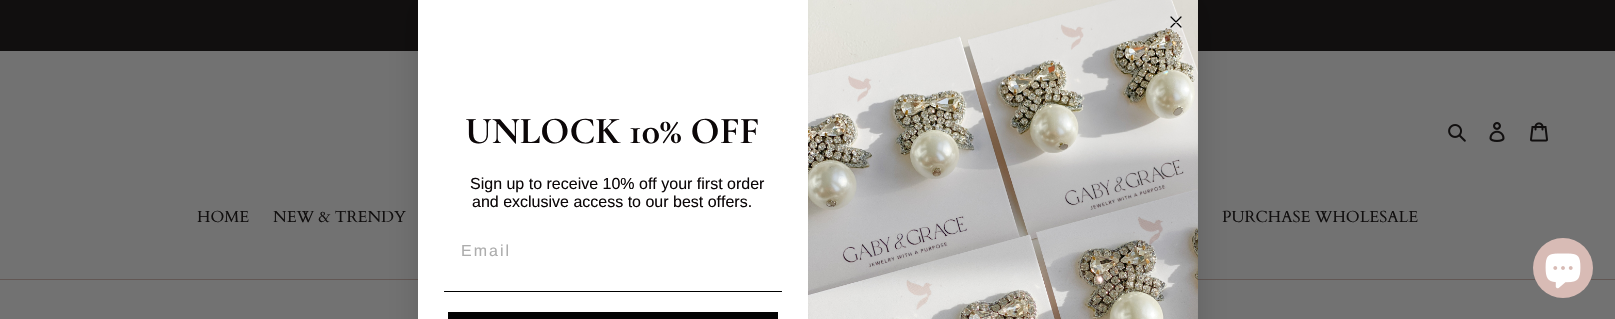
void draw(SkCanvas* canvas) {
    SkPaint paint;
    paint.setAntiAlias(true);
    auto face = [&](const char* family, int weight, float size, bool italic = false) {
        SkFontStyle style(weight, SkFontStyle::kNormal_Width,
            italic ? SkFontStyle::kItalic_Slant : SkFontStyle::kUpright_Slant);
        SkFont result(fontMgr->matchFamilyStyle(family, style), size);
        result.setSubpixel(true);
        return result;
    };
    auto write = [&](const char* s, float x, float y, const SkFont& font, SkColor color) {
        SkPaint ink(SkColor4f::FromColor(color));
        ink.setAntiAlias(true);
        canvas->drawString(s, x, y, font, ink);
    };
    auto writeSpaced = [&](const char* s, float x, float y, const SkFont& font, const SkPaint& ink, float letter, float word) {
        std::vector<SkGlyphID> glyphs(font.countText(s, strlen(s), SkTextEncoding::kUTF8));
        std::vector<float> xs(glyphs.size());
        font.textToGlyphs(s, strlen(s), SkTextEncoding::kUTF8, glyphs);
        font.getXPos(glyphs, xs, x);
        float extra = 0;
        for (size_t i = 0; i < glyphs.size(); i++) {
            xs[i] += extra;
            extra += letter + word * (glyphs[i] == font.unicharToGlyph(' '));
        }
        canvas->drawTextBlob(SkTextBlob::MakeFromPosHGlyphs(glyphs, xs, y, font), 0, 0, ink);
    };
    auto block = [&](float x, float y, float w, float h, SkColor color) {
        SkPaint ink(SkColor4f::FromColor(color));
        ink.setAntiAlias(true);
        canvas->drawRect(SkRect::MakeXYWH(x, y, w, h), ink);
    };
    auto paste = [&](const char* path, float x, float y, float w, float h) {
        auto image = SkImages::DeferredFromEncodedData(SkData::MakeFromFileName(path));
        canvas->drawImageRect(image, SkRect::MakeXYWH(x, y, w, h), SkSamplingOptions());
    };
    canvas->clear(SkColorSetRGB(114, 114, 114));
    block(0, 0, 1615, 51, SkColorSetRGB(17, 15, 15));
    block(0, 279, 1615, 1, SkColorSetRGB(98, 87, 84));
    paint.setColor(SkColorSetARGB(38, 0, 0, 0));
    paint.setMaskFilter(SkMaskFilter::MakeBlur(kNormal_SkBlurStyle, 15));
    canvas->drawRect(SkRect::MakeXYWH(418, 0, 780, 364), paint);
    paint.setMaskFilter(nullptr);
    paste("pic2.png", 808, 0, 390, 319);
    paint.setStyle(SkPaint::kStroke_Style);
    paint.setStrokeWidth(1.2f);
    paint.setStrokeCap(SkPaint::kRound_Cap);
    paint.setStrokeJoin(SkPaint::kRound_Join);
    paint.setColor(SK_ColorBLACK);
    canvas->drawPath(SkPathBuilder().moveTo(1171, 17).lineTo(1181, 27).moveTo(1171, 27).lineTo(1181, 17).close().detach(), paint);
    block(418, 0, 390, 319, SK_ColorWHITE);
    auto kFont1 = face("Cormorant Garamond", 700, 38);
    write("UNLOCK 10% OFF", 465, 143, kFont1, SkColorSetRGB(12, 7, 8));
    auto kFont2 = face("Liberation Sans", 400, 16);
    write("Sign up to receive 10% off your first order", 470, 189, kFont2, SkColorSetRGB(12, 7, 8));
    write("and exclusive access to our best offers.", 472, 207, kFont2, SkColorSetRGB(12, 7, 8));
    paint.setStyle(SkPaint::kFill_Style);
    paint.setColor(SkColorSetRGB(173, 173, 173));
    writeSpaced("Email", 461, 256, kFont2, paint, 2, 0);
    paste("pic1.png", 444, 291, 338, 1);
    block(448, 312, 330, 7, SkColorSetRGB(3, 3, 3));
    paste("pic3.png", 1448, 124, 18, 18);
    paste("pic4.png", 1489, 122, 16, 20);
    paste("pic5.png", 1530, 122, 18, 20);
    auto kFont3 = face("Cardo", 400, 16);
    write("HOME", 197, 222, kFont3, SkColorSetRGB(17, 15, 15));
    write("NEW & TRENDY", 273, 222, kFont3, SkColorSetRGB(17, 15, 15));
    write("PURCHASE WHOLESALE", 1222, 222, kFont3, SkColorSetRGB(17, 15, 15));
    paint.setColor(SkColorSetRGB(216, 187, 181));
    canvas->drawCircle(1563, 268, 30, paint);
    paste("pic6.png", 1545, 253, 36, 36);
}
